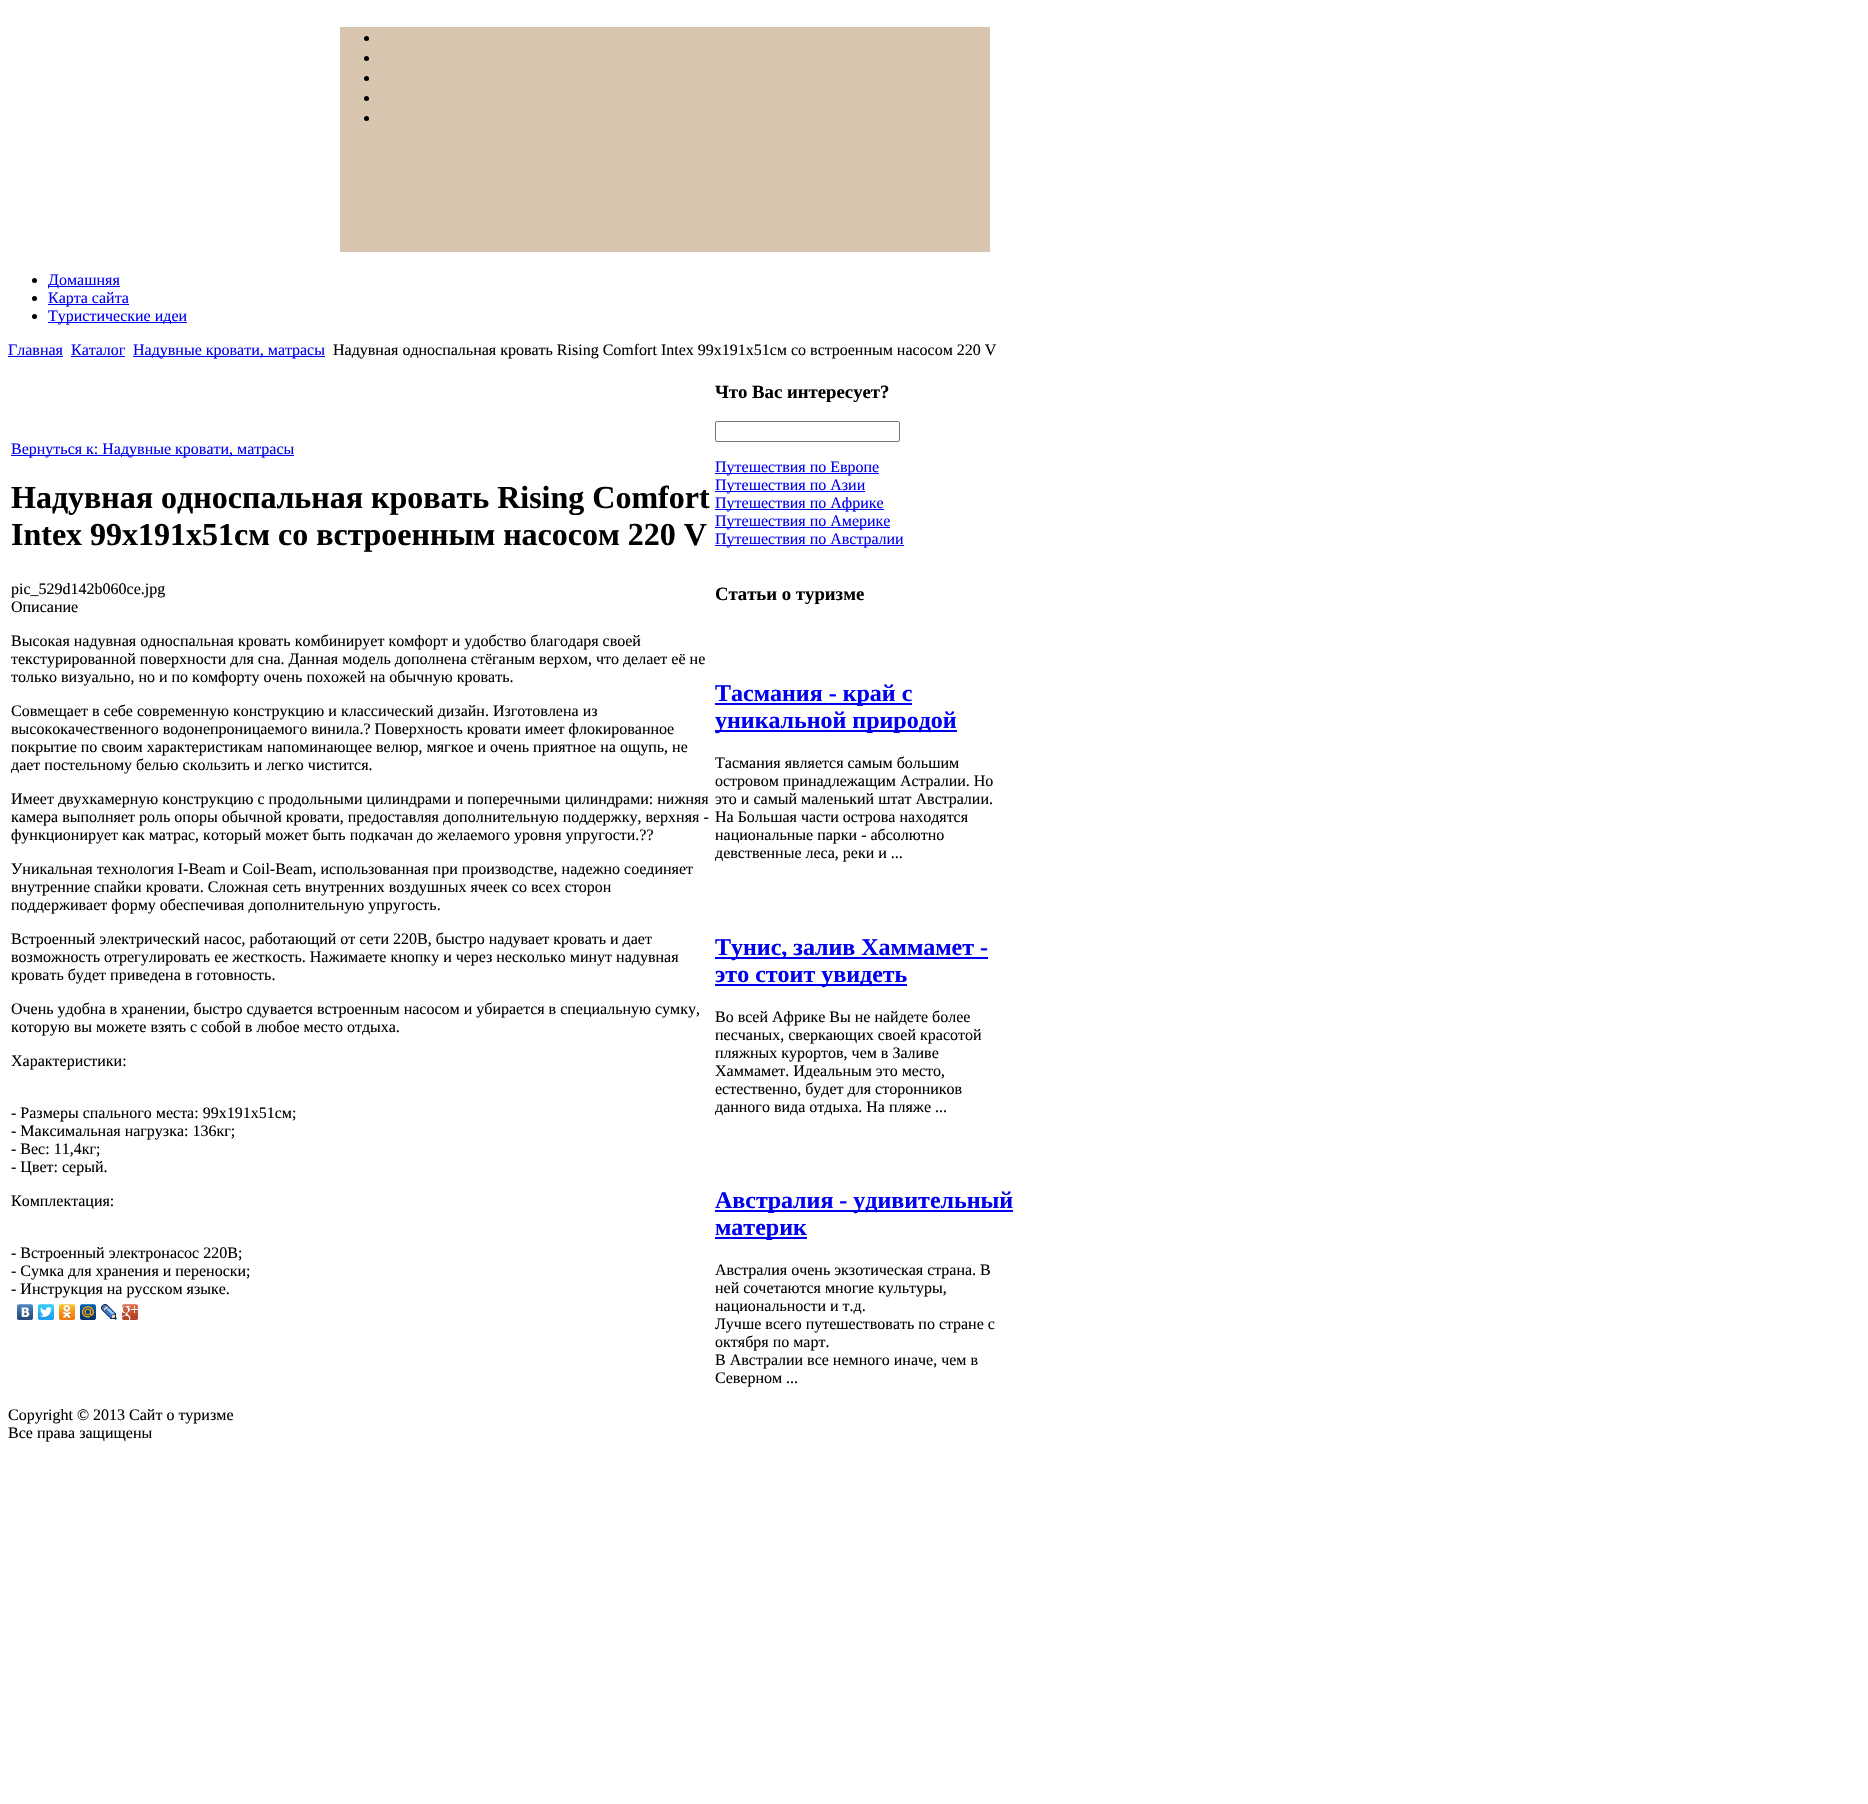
void draw(SkCanvas* canvas) {
    SkPaint paint;
    paint.setAntiAlias(true);
    auto face = [&](const char* family, int weight, float size, bool italic = false) {
        SkFontStyle style(weight, SkFontStyle::kNormal_Width,
            italic ? SkFontStyle::kItalic_Slant : SkFontStyle::kUpright_Slant);
        SkFont result(fontMgr->matchFamilyStyle(family, style), size);
        result.setSubpixel(true);
        return result;
    };
    auto write = [&](const char* s, float x, float y, const SkFont& font, SkColor color) {
        SkPaint ink(SkColor4f::FromColor(color));
        ink.setAntiAlias(true);
        canvas->drawString(s, x, y, font, ink);
    };
    auto block = [&](float x, float y, float w, float h, SkColor color) {
        SkPaint ink(SkColor4f::FromColor(color));
        ink.setAntiAlias(true);
        canvas->drawRect(SkRect::MakeXYWH(x, y, w, h), ink);
    };
    auto paste = [&](const char* path, float x, float y, float w, float h) {
        auto image = SkImages::DeferredFromEncodedData(SkData::MakeFromFileName(path));
        canvas->drawImageRect(image, SkRect::MakeXYWH(x, y, w, h), SkSamplingOptions());
    };
    canvas->clear(SK_ColorWHITE);
    block(340, 27, 650, 225, SkColorSetRGB(215, 197, 175));
    paint.setColor(SK_ColorBLACK);
    canvas->drawCircle(366.5f, 38.5f, 2.5f, paint);
    canvas->drawCircle(366.5f, 58.5f, 2.5f, paint);
    canvas->drawCircle(366.5f, 78.5f, 2.5f, paint);
    canvas->drawCircle(366.5f, 98.5f, 2.5f, paint);
    canvas->drawCircle(366.5f, 118.5f, 2.5f, paint);
    canvas->drawCircle(34.5f, 280.5f, 2.5f, paint);
    block(48, 286, 72, 1, SkColorSetRGB(0, 0, 238));
    auto kFont1 = face("Liberation Serif", 400, 16);
    write("Домашняя", 48, 285, kFont1, SkColorSetRGB(0, 0, 238));
    canvas->drawCircle(34.5f, 298.5f, 2.5f, paint);
    block(48, 304, 81, 1, SkColorSetRGB(0, 0, 238));
    write("Карта сайта", 48, 303, kFont1, SkColorSetRGB(0, 0, 238));
    canvas->drawCircle(34.5f, 316.5f, 2.5f, paint);
    block(48, 322, 139, 1, SkColorSetRGB(0, 0, 238));
    write("Туристические идеи", 48, 321, kFont1, SkColorSetRGB(0, 0, 238));
    write("Главная", 8, 355, kFont1, SkColorSetRGB(0, 0, 238));
    block(8, 356, 55, 1, SkColorSetRGB(0, 0, 238));
    write("Каталог", 71, 355, kFont1, SkColorSetRGB(0, 0, 238));
    block(71, 356, 54, 1, SkColorSetRGB(0, 0, 238));
    block(133, 356, 192, 1, SkColorSetRGB(0, 0, 238));
    write("Надувные кровати, матрасы", 133, 355, kFont1, SkColorSetRGB(0, 0, 238));
    write("Надувная односпальная кровать Rising Comfort Intex 99х191х51см со встроенным насосом 220 V", 333, 355, kFont1, SK_ColorBLACK);
    block(11, 455, 283, 1, SkColorSetRGB(0, 0, 238));
    write("Вернуться к: Надувные кровати, матрасы", 11, 454, kFont1, SkColorSetRGB(0, 0, 238));
    auto kFont2 = face("Liberation Serif", 700, 32);
    write("Надувная односпальная кровать Rising Comfort", 11, 508, kFont2, SK_ColorBLACK);
    write("Intex 99х191х51см со встроенным насосом 220 V", 11, 545, kFont2, SK_ColorBLACK);
    write("pic_529d142b060ce.jpg", 11, 594, kFont1, SK_ColorBLACK);
    write("Описание", 11, 612, kFont1, SK_ColorBLACK);
    write("Высокая надувная односпальная кровать комбинирует комфорт и удобство благодаря своей", 11, 646, kFont1, SK_ColorBLACK);
    write("текстурированной поверхности для сна. Данная модель дополнена стёганым верхом, что делает её не", 11, 664, kFont1, SK_ColorBLACK);
    write("только визуально, но и по комфорту очень похожей на обычную кровать.", 11, 682, kFont1, SK_ColorBLACK);
    write("Совмещает в себе современную конструкцию и классический дизайн. Изготовлена из", 11, 716, kFont1, SK_ColorBLACK);
    write("высококачественного водонепроницаемого винила.? Поверхность кровати имеет флокированное", 11, 734, kFont1, SK_ColorBLACK);
    write("покрытие по своим характеристикам напоминающее велюр, мягкое и очень приятное на ощупь, не", 11, 752, kFont1, SK_ColorBLACK);
    write("дает постельному белью скользить и легко чистится.", 11, 770, kFont1, SK_ColorBLACK);
    write("Имеет двухкамерную конструкцию с продольными цилиндрами и поперечными цилиндрами: нижняя", 11, 804, kFont1, SK_ColorBLACK);
    write("камера выполняет роль опоры обычной кровати, предоставляя дополнительную поддержку, верхняя -", 11, 822, kFont1, SK_ColorBLACK);
    write("функционирует как матрас, который может быть подкачан до желаемого уровня упругости.?\077", 11, 840, kFont1, SK_ColorBLACK);
    write("Уникальная технология I-Beam и Coil-Beam, использованная при производстве, надежно соединяет", 11, 874, kFont1, SK_ColorBLACK);
    write("внутренние спайки кровати. Сложная сеть внутренних воздушных ячеек со всех сторон", 11, 892, kFont1, SK_ColorBLACK);
    write("поддерживает форму обеспечивая дополнительную упругость.", 11, 910, kFont1, SK_ColorBLACK);
    write("Встроенный электрический насос, работающий от сети 220В, быстро надувает кровать и дает", 11, 944, kFont1, SK_ColorBLACK);
    write("возможность отрегулировать ее жесткость. Нажимаете кнопку и через несколько минут надувная", 11, 962, kFont1, SK_ColorBLACK);
    write("кровать будет приведена в готовность.", 11, 980, kFont1, SK_ColorBLACK);
    write("Очень удобна в хранении, быстро сдувается встроенным насосом и убирается в специальную сумку,", 11, 1014, kFont1, SK_ColorBLACK);
    write("которую вы можете взять с собой в любое место отдыха.", 11, 1032, kFont1, SK_ColorBLACK);
    write("Характеристики:", 11, 1066, kFont1, SK_ColorBLACK);
    write("- Размеры спального места: 99х191х51см;", 11, 1118, kFont1, SK_ColorBLACK);
    write("- Максимальная нагрузка: 136кг;", 11, 1136, kFont1, SK_ColorBLACK);
    write("- Вес: 11,4кг;", 11, 1154, kFont1, SK_ColorBLACK);
    write("- Цвет: серый.", 11, 1172, kFont1, SK_ColorBLACK);
    write("Комплектация:", 11, 1206, kFont1, SK_ColorBLACK);
    write("- Встроенный электронасос 220В;", 11, 1258, kFont1, SK_ColorBLACK);
    write("- Сумка для хранения и переноски;", 11, 1276, kFont1, SK_ColorBLACK);
    write("- Инструкция на русском языке.", 11, 1294, kFont1, SK_ColorBLACK);
    paste("pic1.png", 17, 1304, 16, 16);
    paste("pic2.png", 38, 1304, 16, 16);
    paste("pic3.png", 59, 1304, 16, 16);
    paste("pic4.png", 80, 1304, 16, 16);
    paste("pic5.png", 101, 1304, 16, 16);
    paste("pic6.png", 122, 1304, 16, 16);
    auto kFont3 = face("Liberation Serif", 700, 18.75f);
    write("Что Вас интересует?", 715, 398, kFont3, SK_ColorBLACK);
    paint.setStyle(SkPaint::kStroke_Style);
    paint.setStrokeWidth(1);
    paint.setColor(SkColorSetRGB(118, 118, 118));
    canvas->drawRoundRect(SkRect::MakeXYWH(715.5f, 421.5f, 184, 20), 1.5f, 1.5f, paint);
    block(715, 473, 164, 1, SkColorSetRGB(0, 0, 238));
    write("Путешествия по Европе", 715, 472, kFont1, SkColorSetRGB(0, 0, 238));
    block(715, 491, 150, 1, SkColorSetRGB(0, 0, 238));
    write("Путешествия по Азии", 715, 490, kFont1, SkColorSetRGB(0, 0, 238));
    block(715, 509, 169, 1, SkColorSetRGB(0, 0, 238));
    write("Путешествия по Африке", 715, 508, kFont1, SkColorSetRGB(0, 0, 238));
    block(715, 527, 175, 1, SkColorSetRGB(0, 0, 238));
    write("Путешествия по Америке", 715, 526, kFont1, SkColorSetRGB(0, 0, 238));
    block(715, 545, 189, 1, SkColorSetRGB(0, 0, 238));
    write("Путешествия по Австралии", 715, 544, kFont1, SkColorSetRGB(0, 0, 238));
    write("Статьи о туризме", 715, 600, kFont3, SK_ColorBLACK);
    block(715, 703, 197, 2, SkColorSetRGB(0, 0, 238));
    auto kFont4 = face("Liberation Serif", 700, 24);
    write("Тасмания - край с", 715, 701, kFont4, SkColorSetRGB(0, 0, 238));
    block(715, 730, 242, 2, SkColorSetRGB(0, 0, 238));
    write("уникальной природой", 715, 728, kFont4, SkColorSetRGB(0, 0, 238));
    write("Тасмания является самым большим", 715, 768, kFont1, SK_ColorBLACK);
    write("островом принадлежащим Астралии. Но", 715, 786, kFont1, SK_ColorBLACK);
    write("это и самый маленький штат Австралии.", 715, 804, kFont1, SK_ColorBLACK);
    write("На Большая части острова находятся", 715, 822, kFont1, SK_ColorBLACK);
    write("национальные парки - абсолютно", 715, 840, kFont1, SK_ColorBLACK);
    write("девственные леса, реки и ...", 715, 858, kFont1, SK_ColorBLACK);
    block(715, 957, 273, 2, SkColorSetRGB(0, 0, 238));
    write("Тунис, залив Хаммамет -", 715, 955, kFont4, SkColorSetRGB(0, 0, 238));
    block(715, 984, 192, 2, SkColorSetRGB(0, 0, 238));
    write("это стоит увидеть", 715, 982, kFont4, SkColorSetRGB(0, 0, 238));
    write("Во всей Африке Вы не найдете более", 715, 1022, kFont1, SK_ColorBLACK);
    write("песчаных, сверкающих своей красотой", 715, 1040, kFont1, SK_ColorBLACK);
    write("пляжных курортов, чем в Заливе", 715, 1058, kFont1, SK_ColorBLACK);
    write("Хаммамет. Идеальным это место,", 715, 1076, kFont1, SK_ColorBLACK);
    write("естественно, будет для сторонников", 715, 1094, kFont1, SK_ColorBLACK);
    write("данного вида отдыха. На пляже ...", 715, 1112, kFont1, SK_ColorBLACK);
    block(715, 1210, 298, 2, SkColorSetRGB(0, 0, 238));
    write("Австралия - удивительный", 715, 1208, kFont4, SkColorSetRGB(0, 0, 238));
    block(715, 1237, 92, 2, SkColorSetRGB(0, 0, 238));
    write("материк", 715, 1235, kFont4, SkColorSetRGB(0, 0, 238));
    write("Австралия очень экзотическая страна. В", 715, 1275, kFont1, SK_ColorBLACK);
    write("ней сочетаются многие культуры,", 715, 1293, kFont1, SK_ColorBLACK);
    write("национальности и т.д.", 715, 1311, kFont1, SK_ColorBLACK);
    write("Лучше всего путешествовать по стране с", 715, 1329, kFont1, SK_ColorBLACK);
    write("октября по март.", 715, 1347, kFont1, SK_ColorBLACK);
    write("В Австралии все немного иначе, чем в", 715, 1365, kFont1, SK_ColorBLACK);
    write("Северном ...", 715, 1383, kFont1, SK_ColorBLACK);
    write("Copyright © 2013 Сайт о туризме", 8, 1420, kFont1, SK_ColorBLACK);
    write("Все права защищены", 8, 1438, kFont1, SK_ColorBLACK);
}
